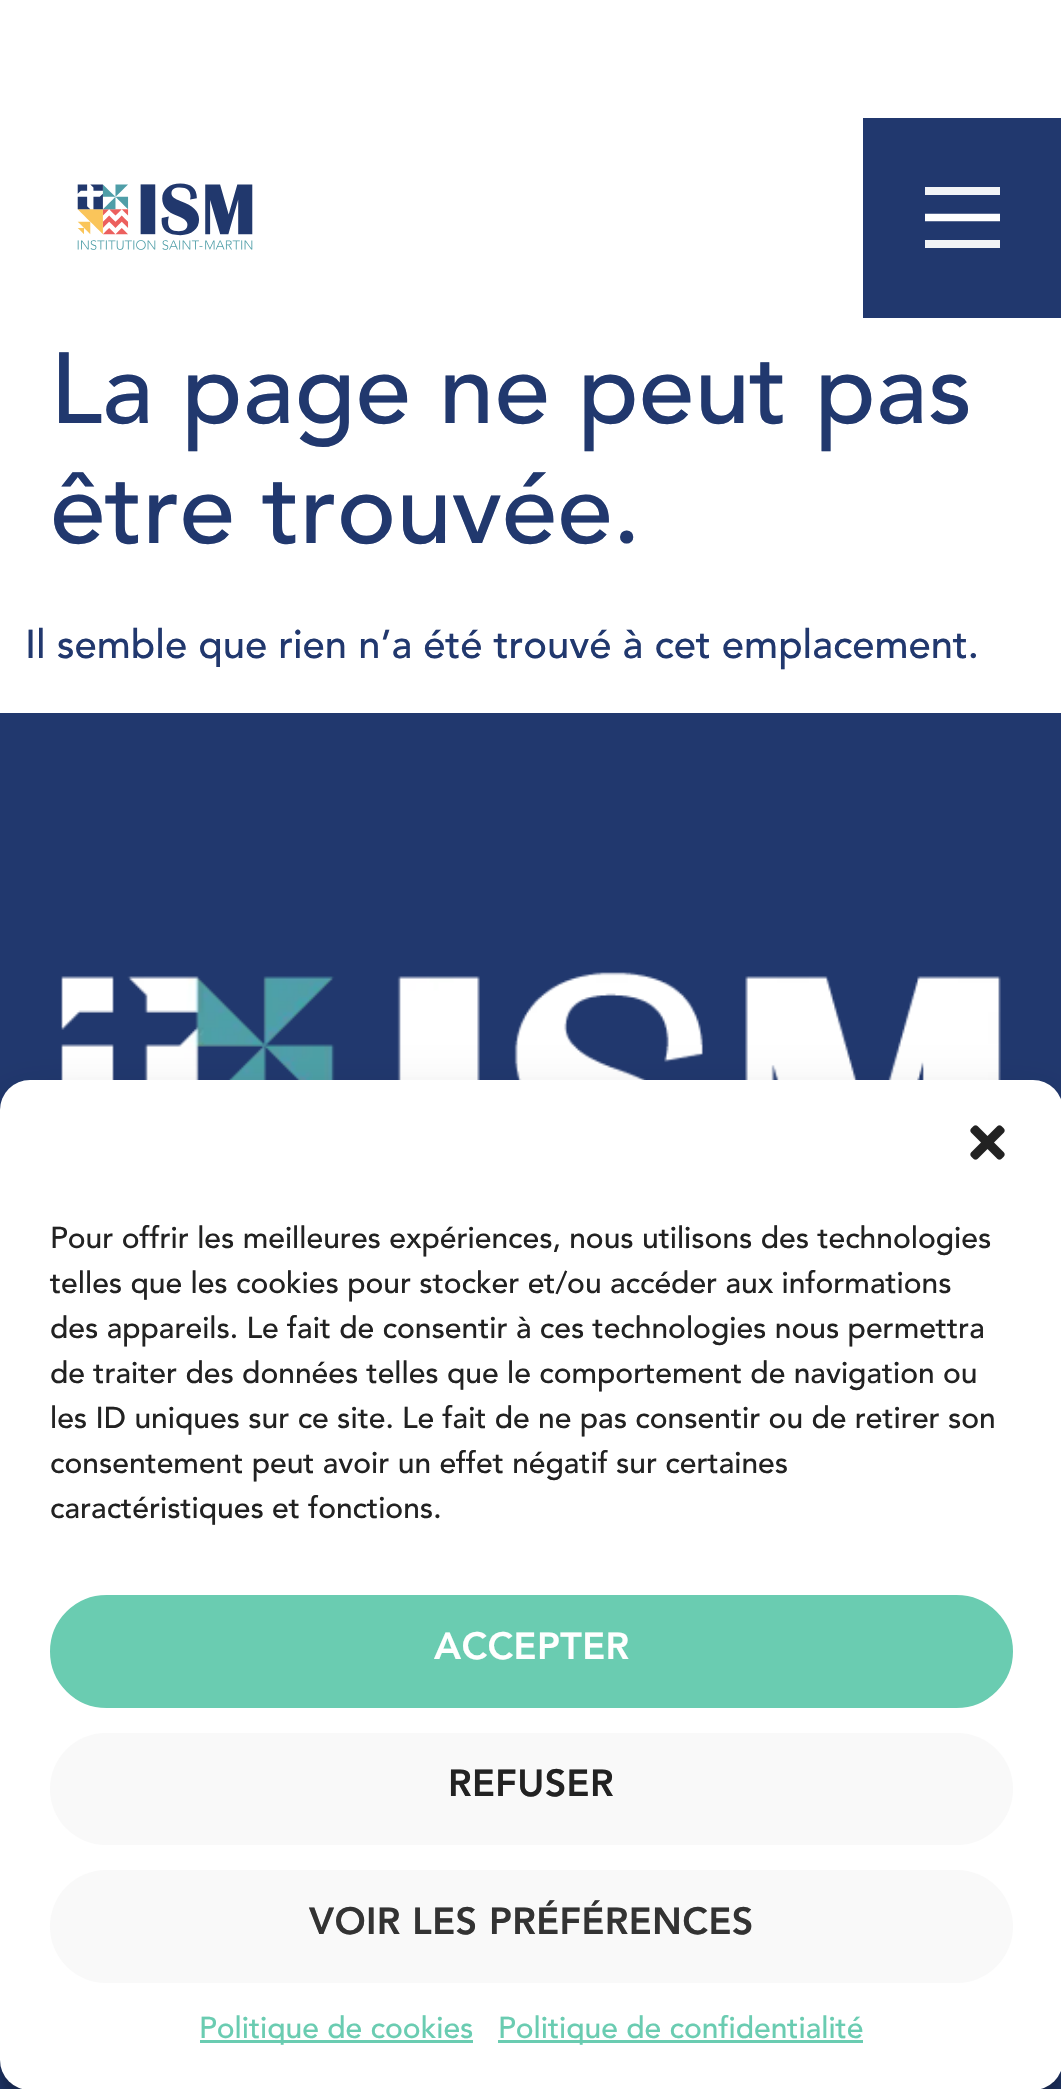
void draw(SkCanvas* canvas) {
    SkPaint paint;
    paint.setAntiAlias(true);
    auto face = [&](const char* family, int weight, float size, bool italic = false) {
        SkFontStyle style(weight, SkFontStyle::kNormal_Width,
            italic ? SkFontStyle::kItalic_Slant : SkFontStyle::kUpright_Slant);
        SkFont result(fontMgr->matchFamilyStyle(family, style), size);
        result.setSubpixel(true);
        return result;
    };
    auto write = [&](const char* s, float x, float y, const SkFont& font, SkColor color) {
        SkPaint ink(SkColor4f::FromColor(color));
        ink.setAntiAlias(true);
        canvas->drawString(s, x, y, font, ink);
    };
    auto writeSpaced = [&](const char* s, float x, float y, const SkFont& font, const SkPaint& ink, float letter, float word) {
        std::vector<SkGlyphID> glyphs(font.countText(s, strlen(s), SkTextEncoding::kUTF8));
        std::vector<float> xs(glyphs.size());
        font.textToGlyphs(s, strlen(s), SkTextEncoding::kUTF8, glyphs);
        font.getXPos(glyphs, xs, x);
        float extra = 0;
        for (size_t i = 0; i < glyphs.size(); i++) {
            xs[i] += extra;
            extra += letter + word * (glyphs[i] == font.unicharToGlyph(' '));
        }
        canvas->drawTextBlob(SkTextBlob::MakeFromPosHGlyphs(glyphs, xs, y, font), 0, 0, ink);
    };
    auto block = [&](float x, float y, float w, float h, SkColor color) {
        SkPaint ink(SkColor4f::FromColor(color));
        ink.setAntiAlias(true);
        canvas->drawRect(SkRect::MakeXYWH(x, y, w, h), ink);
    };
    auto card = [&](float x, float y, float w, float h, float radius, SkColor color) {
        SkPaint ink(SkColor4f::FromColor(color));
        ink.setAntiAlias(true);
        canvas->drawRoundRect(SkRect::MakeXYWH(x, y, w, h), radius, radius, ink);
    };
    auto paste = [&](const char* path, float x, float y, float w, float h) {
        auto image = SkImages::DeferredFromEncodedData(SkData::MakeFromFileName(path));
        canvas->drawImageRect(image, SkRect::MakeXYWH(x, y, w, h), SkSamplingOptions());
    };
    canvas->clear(SK_ColorWHITE);
    paste("pic1.png", 77, 183, 176, 67);
    block(863, 118, 198, 200, SkColorSetRGB(33, 56, 110));
    block(925, 187, 75, 8, SkColorSetRGB(241, 243, 246));
    paint.setStyle(SkPaint::kStroke_Style);
    paint.setStrokeWidth(7.5f);
    paint.setColor(SK_ColorWHITE);
    canvas->drawPath(SkPathBuilder().moveTo(925, 217.5f).lineTo(1000, 217.5f).detach(), paint);
    block(925, 240, 75, 8, SkColorSetRGB(241, 243, 246));
    auto kFont1 = face("Avenir", 500, 100);
    write("La page ne peut pas", 50, 423, kFont1, SkColorSetRGB(33, 56, 110));
    write("être trouvée.", 50, 543, kFont1, SkColorSetRGB(33, 56, 110));
    auto kFont2 = face("Avenir", 500, 40);
    write("Il semble que rien n’a été trouvé à cet emplacement.", 25, 658, kFont2, SkColorSetRGB(33, 56, 110));
    block(0, 713, 1061, 1376, SkColorSetRGB(33, 56, 110));
    paste("pic2.png", 61, 972, 940, 108);
    paint.setStyle(SkPaint::kFill_Style);
    paint.setColor(SkColorSetARGB(59, 0, 0, 0));
    paint.setMaskFilter(SkMaskFilter::MakeBlur(kNormal_SkBlurStyle, 7.5f));
    canvas->drawRoundRect(SkRect::MakeXYWH(0, 1095, 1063, 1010), 30, 30, paint);
    paint.setMaskFilter(nullptr);
    paint.setColor(SkColorSetARGB(48, 0, 0, 0));
    paint.setMaskFilter(SkMaskFilter::MakeBlur(kNormal_SkBlurStyle, 25));
    canvas->drawRoundRect(SkRect::MakeXYWH(0, 1105, 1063, 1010), 30, 30, paint);
    paint.setMaskFilter(nullptr);
    card(0, 1080, 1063, 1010, 30, SK_ColorWHITE);
    paste("pic3.png", 970, 1125, 35, 35);
    auto kFont3 = face("Avenir", 500, 30);
    write("Pour offrir les meilleures expériences, nous utilisons des technologies", 50, 1248, kFont3, SkColorSetRGB(34, 34, 34));
    write("telles que les cookies pour stocker et/ou accéder aux informations", 50, 1293, kFont3, SkColorSetRGB(34, 34, 34));
    write("des appareils. Le fait de consentir à ces technologies nous permettra", 50, 1338, kFont3, SkColorSetRGB(34, 34, 34));
    write("de traiter des données telles que le comportement de navigation ou", 50, 1383, kFont3, SkColorSetRGB(34, 34, 34));
    write("les ID uniques sur ce site. Le fait de ne pas consentir ou de retirer son", 50, 1428, kFont3, SkColorSetRGB(34, 34, 34));
    write("consentement peut avoir un effet négatif sur certaines", 50, 1473, kFont3, SkColorSetRGB(34, 34, 34));
    write("caractéristiques et fonctions.", 50, 1518, kFont3, SkColorSetRGB(34, 34, 34));
    paint.setColor(SkColorSetRGB(106, 204, 177));
    canvas->drawRoundRect(SkRect::MakeXYWH(51.5f, 1596.5f, 960, 110), 55, 55, paint);
    paint.setStyle(SkPaint::kStroke_Style);
    paint.setStrokeWidth(3);
    canvas->drawRoundRect(SkRect::MakeXYWH(51.5f, 1596.5f, 960, 110), 55, 55, paint);
    auto kFont4 = face("Avenir", 900, 37.5f);
    paint.setStyle(SkPaint::kFill_Style);
    paint.setColor(SK_ColorWHITE);
    writeSpaced("ACCEPTER", 434, 1659, kFont4, paint, 0.4f, 0);
    card(50, 1733, 963, 112, 56, SkColorSetRGB(249, 249, 249));
    paint.setColor(SkColorSetRGB(34, 34, 34));
    writeSpaced("REFUSER", 448, 1796, kFont4, paint, 0.4f, 0);
    card(50, 1870, 963, 113, 56.5f, SkColorSetRGB(249, 249, 249));
    paint.setColor(SkColorSetRGB(51, 51, 51));
    writeSpaced("VOIR LES PRÉFÉRENCES", 309, 1934, kFont4, paint, 0.4f, 0);
    block(200, 2040, 273, 3, SkColorSetRGB(106, 204, 177));
    write("Politique de cookies", 199, 2038, kFont3, SkColorSetRGB(106, 204, 177));
    block(498, 2040, 365, 3, SkColorSetRGB(106, 204, 177));
    write("Politique de confidentialité", 498, 2038, kFont3, SkColorSetRGB(106, 204, 177));
}
